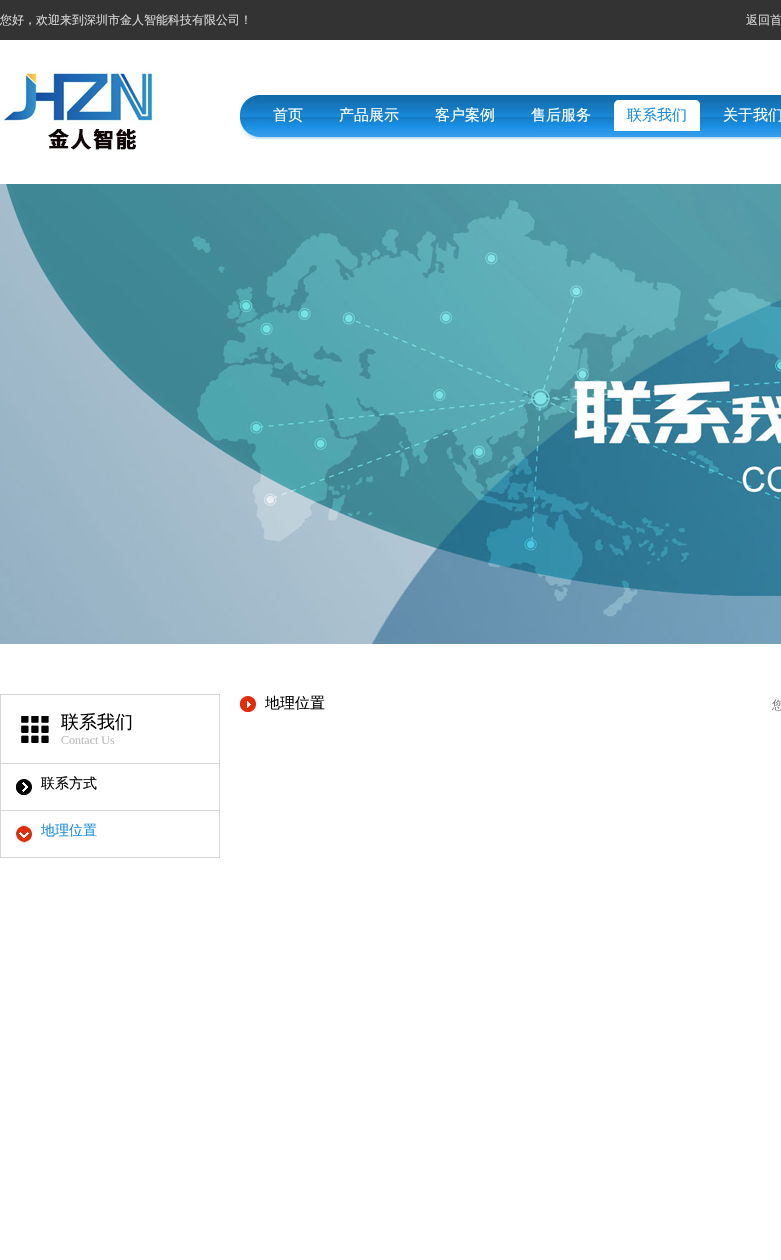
void draw(SkCanvas* canvas) {
    SkPaint paint;
    paint.setAntiAlias(true);
    auto face = [&](const char* family, int weight, float size, bool italic = false) {
        SkFontStyle style(weight, SkFontStyle::kNormal_Width,
            italic ? SkFontStyle::kItalic_Slant : SkFontStyle::kUpright_Slant);
        SkFont result(fontMgr->matchFamilyStyle(family, style), size);
        result.setSubpixel(true);
        return result;
    };
    auto write = [&](const char* s, float x, float y, const SkFont& font, SkColor color) {
        SkPaint ink(SkColor4f::FromColor(color));
        ink.setAntiAlias(true);
        canvas->drawString(s, x, y, font, ink);
    };
    auto block = [&](float x, float y, float w, float h, SkColor color) {
        SkPaint ink(SkColor4f::FromColor(color));
        ink.setAntiAlias(true);
        canvas->drawRect(SkRect::MakeXYWH(x, y, w, h), ink);
    };
    auto paste = [&](const char* path, float x, float y, float w, float h) {
        auto image = SkImages::DeferredFromEncodedData(SkData::MakeFromFileName(path));
        canvas->drawImageRect(image, SkRect::MakeXYWH(x, y, w, h), SkSamplingOptions());
    };
    canvas->clear(SK_ColorWHITE);
    block(0, 0, 781, 40, SkColorSetRGB(51, 51, 51));
    auto kFont1 = face("WenQuanYi Zen Hei", 500, 12);
    write("您好，欢迎来到深圳市金人智能科技有限公司！", 0, 24, kFont1, SkColorSetRGB(214, 214, 214));
    write("返回首", 746, 24, kFont1, SkColorSetRGB(214, 214, 214));
    paste("pic1.png", 0, 70, 156, 80);
    paste("pic2.png", 240, 95, 541, 44);
    auto kFont2 = face("WenQuanYi Zen Hei", 500, 15);
    write("首页", 273, 120, kFont2, SK_ColorWHITE);
    write("产品展示", 339, 120, kFont2, SK_ColorWHITE);
    write("客户案例", 435, 120, kFont2, SK_ColorWHITE);
    write("售后服务", 531, 120, kFont2, SK_ColorWHITE);
    paint.setColor(SK_ColorWHITE);
    canvas->drawPath(SkPathBuilder().moveTo(619, 100).lineTo(695, 100).cubicTo(698, 100, 700, 102, 700, 105).lineTo(700, 131).lineTo(614, 131).lineTo(614, 105).cubicTo(614, 102, 616, 100, 619, 100).close().detach(), paint);
    write("联系我们", 627, 120, kFont2, SkColorSetRGB(25, 142, 227));
    write("关于我们", 723, 120, kFont2, SK_ColorWHITE);
    paste("pic3.png", 0, 184, 781, 460);
    paste("pic4.png", 240, 696, 16, 16);
    write("地理位置", 265, 708, kFont2, SK_ColorBLACK);
    write("您", 772, 709, kFont1, SkColorSetRGB(120, 120, 118));
    paint.setStyle(SkPaint::kStroke_Style);
    paint.setStrokeWidth(1);
    paint.setColor(SkColorSetRGB(214, 214, 214));
    canvas->drawRect(SkRect::MakeXYWH(0.5f, 694.5f, 219, 163), paint);
    paste("pic5.png", 21, 716, 28, 27);
    auto kFont3 = face("WenQuanYi Zen Hei", 500, 18);
    write("联系我们", 61, 728, kFont3, SK_ColorBLACK);
    auto kFont4 = face("Liberation Serif", 400, 12);
    write("Contact Us", 61, 744, kFont4, SkColorSetRGB(188, 188, 188));
    block(1, 763, 218, 1, SkColorSetRGB(214, 214, 214));
    paste("pic6.png", 16, 779, 16, 16);
    auto kFont5 = face("WenQuanYi Zen Hei", 500, 14);
    write("联系方式", 41, 788, kFont5, SK_ColorBLACK);
    block(1, 810, 218, 1, SkColorSetRGB(214, 214, 214));
    paste("pic7.png", 16, 825, 16, 18);
    write("地理位置", 41, 835, kFont5, SkColorSetRGB(25, 142, 227));
}
